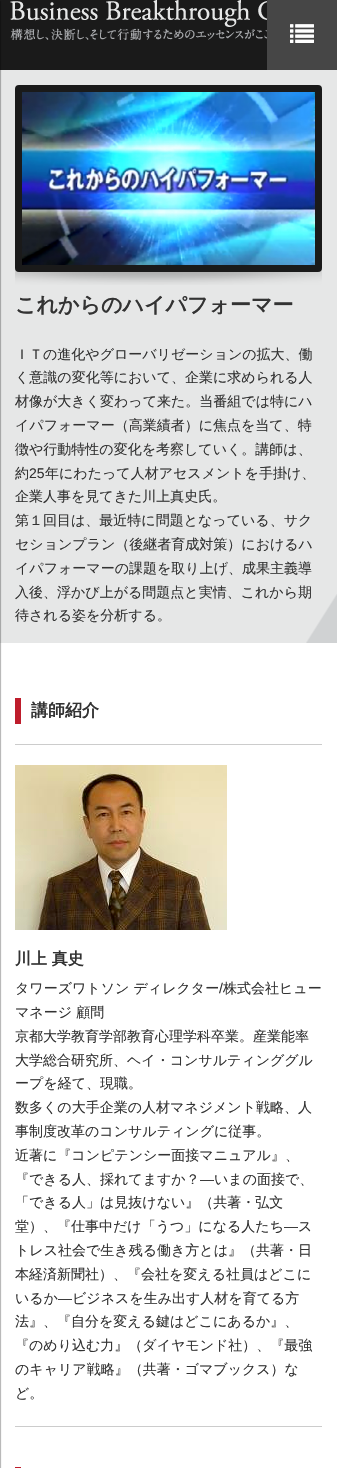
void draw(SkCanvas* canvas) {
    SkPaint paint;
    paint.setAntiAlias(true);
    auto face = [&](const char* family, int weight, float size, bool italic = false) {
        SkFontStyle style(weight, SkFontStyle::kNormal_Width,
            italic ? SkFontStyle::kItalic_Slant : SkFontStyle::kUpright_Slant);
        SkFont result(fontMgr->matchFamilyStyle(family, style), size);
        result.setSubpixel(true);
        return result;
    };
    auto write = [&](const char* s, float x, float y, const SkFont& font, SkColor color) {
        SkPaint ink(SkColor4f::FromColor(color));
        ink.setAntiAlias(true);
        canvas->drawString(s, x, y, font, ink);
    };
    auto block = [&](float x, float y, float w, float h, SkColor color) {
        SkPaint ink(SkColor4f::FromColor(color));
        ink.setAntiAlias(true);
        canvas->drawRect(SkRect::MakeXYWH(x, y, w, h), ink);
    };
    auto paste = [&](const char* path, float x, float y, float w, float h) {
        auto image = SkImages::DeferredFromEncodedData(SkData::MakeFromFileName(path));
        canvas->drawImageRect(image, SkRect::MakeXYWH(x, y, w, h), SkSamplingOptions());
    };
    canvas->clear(SK_ColorWHITE);
    block(0, 0, 267, 70, SkColorSetRGB(26, 26, 26));
    paste("pic1.png", 10, 0, 257, 40);
    block(267, 0, 70, 70, SkColorSetRGB(70, 70, 70));
    paste("pic2.png", 290, 24, 24, 19);
    block(0, 70, 337, 573, SkColorSetRGB(230, 231, 231));
    paint.setColor(SkColorSetARGB(77, 0, 0, 0));
    paint.setMaskFilter(SkMaskFilter::MakeBlur(kNormal_SkBlurStyle, 0.5f));
    canvas->drawRect(SkRect::MakeXYWH(-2, 1, 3, 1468), paint);
    paint.setMaskFilter(nullptr);
    paste("pic3.png", 306, 594, 31, 49);
    paste("pic4.png", 15, 268, 307, 17);
    paint.setStyle(SkPaint::kStroke_Style);
    paint.setStrokeWidth(7);
    paint.setColor(SkColorSetRGB(26, 26, 26));
    canvas->drawRoundRect(SkRect::MakeXYWH(18.5f, 88.5f, 300, 180), 0.5f, 0.5f, paint);
    paste("pic5.png", 22, 92, 293, 173);
    auto kFont1 = face("WenQuanYi Zen Hei", 700, 21);
    write("これからのハイパフォーマー", 15, 312, kFont1, SkColorSetRGB(51, 51, 51));
    auto kFont2 = face("WenQuanYi Zen Hei", 500, 14);
    write("ＩＴの進化やグローバリゼーションの拡大、働", 15, 359, kFont2, SkColorSetRGB(51, 51, 51));
    write("く意識の変化等において、企業に求められる人", 15, 382, kFont2, SkColorSetRGB(51, 51, 51));
    write("材像が大きく変わって来た。当番組では特にハ", 15, 406, kFont2, SkColorSetRGB(51, 51, 51));
    write("イパフォーマー（高業績者）に焦点を当て、特", 15, 430, kFont2, SkColorSetRGB(51, 51, 51));
    write("徴や行動特性の変化を考察していく。講師は、", 15, 454, kFont2, SkColorSetRGB(51, 51, 51));
    write("約", 15, 478, kFont2, SkColorSetRGB(51, 51, 51));
    auto kFont3 = face("Liberation Sans", 400, 14);
    write("25", 29, 478, kFont3, SkColorSetRGB(51, 51, 51));
    write("年にわたって人材アセスメントを手掛け、", 45, 478, kFont2, SkColorSetRGB(51, 51, 51));
    write("企業人事を見てきた川上真史氏。", 15, 501, kFont2, SkColorSetRGB(51, 51, 51));
    write("第１回目は、最近特に問題となっている、サク", 15, 525, kFont2, SkColorSetRGB(51, 51, 51));
    write("セションプラン（後継者育成対策）におけるハ", 15, 549, kFont2, SkColorSetRGB(51, 51, 51));
    write("イパフォーマーの課題を取り上げ、成果主義導", 15, 573, kFont2, SkColorSetRGB(51, 51, 51));
    write("入後、浮かび上がる問題点と実情、これから期", 15, 597, kFont2, SkColorSetRGB(51, 51, 51));
    write("待される姿を分析する。", 15, 620, kFont2, SkColorSetRGB(51, 51, 51));
    block(15, 698, 6, 26, SkColorSetRGB(190, 29, 44));
    auto kFont4 = face("WenQuanYi Zen Hei", 700, 17);
    write("講師紹介", 31, 716, kFont4, SkColorSetRGB(51, 51, 51));
    block(15, 1426, 307, 1, SkColorSetRGB(204, 204, 204));
    block(15, 744, 307, 1, SkColorSetRGB(204, 204, 204));
    paste("pic6.png", 15, 765, 212, 165);
    auto kFont5 = face("WenQuanYi Zen Hei", 700, 16);
    write("川上 真史", 15, 964, kFont5, SkColorSetRGB(51, 51, 51));
    write("タワーズワトソン ディレクター", 15, 993, kFont2, SkColorSetRGB(51, 51, 51));
    write("/", 219, 993, kFont3, SkColorSetRGB(51, 51, 51));
    write("株式会社ヒュー", 223, 993, kFont2, SkColorSetRGB(51, 51, 51));
    write("マネージ 顧問", 15, 1017, kFont2, SkColorSetRGB(51, 51, 51));
    write("京都大学教育学部教育心理学科卒業。産業能率", 15, 1041, kFont2, SkColorSetRGB(51, 51, 51));
    write("大学総合研究所、ヘイ・コンサルティンググル", 15, 1065, kFont2, SkColorSetRGB(51, 51, 51));
    write("ープを経て、現職。", 15, 1088, kFont2, SkColorSetRGB(51, 51, 51));
    write("数多くの大手企業の人材マネジメント戦略、人", 15, 1112, kFont2, SkColorSetRGB(51, 51, 51));
    write("事制度改革のコンサルティングに従事。", 15, 1136, kFont2, SkColorSetRGB(51, 51, 51));
    write("近著に『コンピテンシー面接マニュアル』、", 15, 1160, kFont2, SkColorSetRGB(51, 51, 51));
    write("『できる人、採れてますか？", 15, 1184, kFont2, SkColorSetRGB(51, 51, 51));
    write("―", 200, 1184, kFont3, SkColorSetRGB(51, 51, 51));
    write("いまの面接で、", 214, 1184, kFont2, SkColorSetRGB(51, 51, 51));
    write("「できる人」は見抜けない』（共著・弘文", 15, 1207, kFont2, SkColorSetRGB(51, 51, 51));
    write("堂）、『仕事中だけ「うつ」になる人たち", 15, 1231, kFont2, SkColorSetRGB(51, 51, 51));
    write("―", 284, 1231, kFont3, SkColorSetRGB(51, 51, 51));
    write("ス", 298, 1231, kFont2, SkColorSetRGB(51, 51, 51));
    write("トレス社会で生き残る働き方とは』（共著・日", 15, 1255, kFont2, SkColorSetRGB(51, 51, 51));
    write("本経済新聞社）、『会社を変える社員はどこに", 15, 1279, kFont2, SkColorSetRGB(51, 51, 51));
    write("いるか", 15, 1303, kFont2, SkColorSetRGB(51, 51, 51));
    write("―", 58, 1303, kFont3, SkColorSetRGB(51, 51, 51));
    write("ビジネスを生み出す人材を育てる方", 72, 1303, kFont2, SkColorSetRGB(51, 51, 51));
    write("法』、『自分を変える鍵はどこにあるか』、", 15, 1326, kFont2, SkColorSetRGB(51, 51, 51));
    write("『のめり込む力』（ダイヤモンド社）、『最強", 15, 1350, kFont2, SkColorSetRGB(51, 51, 51));
    write("のキャリア戦略』（共著・ゴマブックス）な", 15, 1374, kFont2, SkColorSetRGB(51, 51, 51));
    write("ど。", 15, 1398, kFont2, SkColorSetRGB(51, 51, 51));
    block(15, 1467, 6, 1, SkColorSetRGB(190, 29, 44));
}
